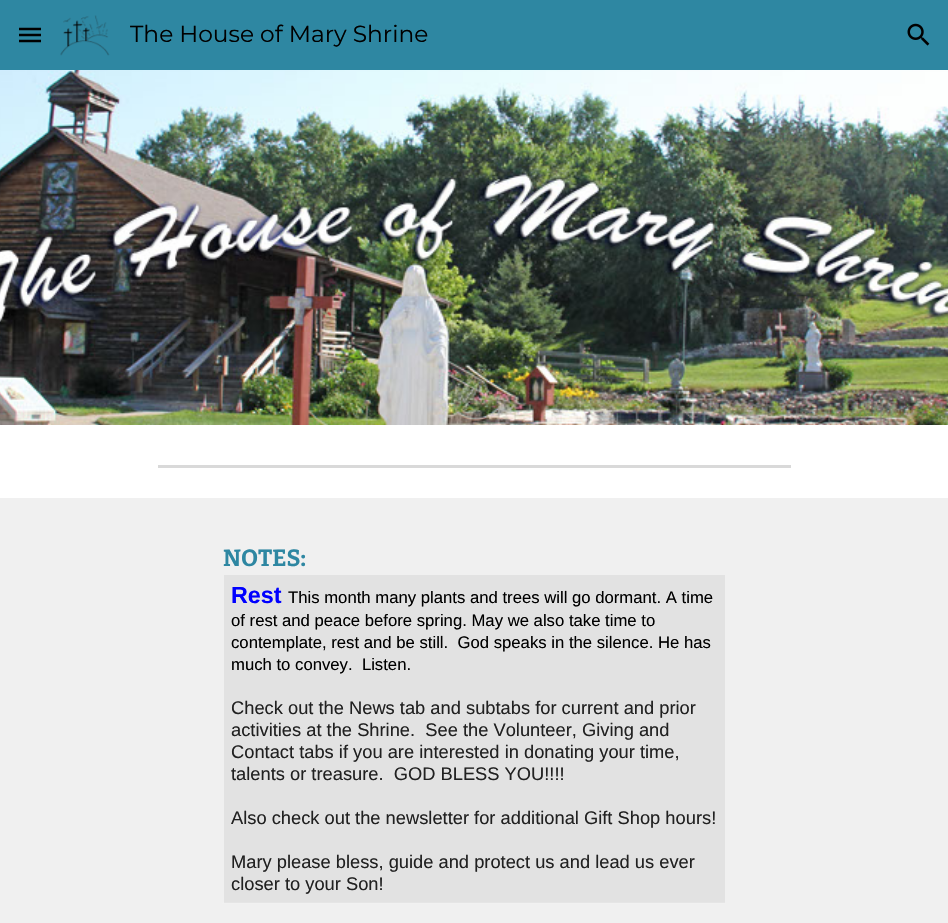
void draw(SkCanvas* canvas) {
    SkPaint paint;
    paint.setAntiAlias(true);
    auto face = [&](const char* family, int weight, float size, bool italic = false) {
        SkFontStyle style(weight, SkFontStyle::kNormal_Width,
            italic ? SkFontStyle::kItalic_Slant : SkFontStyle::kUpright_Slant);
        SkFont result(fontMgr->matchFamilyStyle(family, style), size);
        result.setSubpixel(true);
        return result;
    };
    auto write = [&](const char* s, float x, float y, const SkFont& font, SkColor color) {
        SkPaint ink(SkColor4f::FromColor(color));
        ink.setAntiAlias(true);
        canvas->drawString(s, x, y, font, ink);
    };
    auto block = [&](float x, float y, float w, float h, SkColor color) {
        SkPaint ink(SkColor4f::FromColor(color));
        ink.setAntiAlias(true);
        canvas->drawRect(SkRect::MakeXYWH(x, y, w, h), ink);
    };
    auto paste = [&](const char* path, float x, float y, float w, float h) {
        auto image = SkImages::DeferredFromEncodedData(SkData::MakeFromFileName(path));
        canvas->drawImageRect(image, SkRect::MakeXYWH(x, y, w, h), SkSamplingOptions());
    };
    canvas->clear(SK_ColorWHITE);
    block(0, 0, 948, 70, SkColorSetRGB(46, 135, 162));
    paint.setStyle(SkPaint::kStroke_Style);
    paint.setStrokeWidth(2.5f);
    paint.setColor(SK_ColorBLACK);
    canvas->drawPath(SkPathBuilder().moveTo(19, 29).lineTo(41, 29).moveTo(19, 35).lineTo(41, 35).moveTo(19, 41).lineTo(41, 41).detach(), paint);
    paste("pic1.png", 60, 15, 50, 41);
    auto kFont1 = face("Montserrat", 400, 23.3f);
    write("The House of Mary Shrine", 130, 42, kFont1, SK_ColorBLACK);
    paste("pic2.png", 907, 23, 23, 23);
    paste("pic3.png", 0, 70, 948, 355);
    block(158, 465, 633, 3, SkColorSetRGB(217, 217, 217));
    block(0, 498, 948, 425, SkColorSetRGB(240, 240, 240));
    auto kFont2 = face("Bitter", 700, 23.3f);
    write("NOTES:", 223, 566, kFont2, SkColorSetRGB(46, 135, 162));
    block(224, 575, 501, 328, SkColorSetRGB(226, 226, 226));
    auto kFont3 = face("Liberation Sans", 700, 23.3f);
    write("Rest", 231, 603, kFont3, SkColorSetRGB(0, 0, 255));
    auto kFont4 = face("Liberation Sans", 400, 16.7f);
    write("This month many plants and trees will go dormant. A time", 288, 603, kFont4, SK_ColorBLACK);
    write("of rest and peace before spring. May we also take time to", 231, 626, kFont4, SK_ColorBLACK);
    write("contemplate, rest and be still.  God speaks in the silence. He has", 231, 648, kFont4, SK_ColorBLACK);
    write("much to convey.  Listen.", 231, 670, kFont4, SK_ColorBLACK);
    auto kFont5 = face("Liberation Sans", 400, 18.3f);
    write("Check out the News tab and subtabs for current and prior", 231, 714, kFont5, SkColorSetRGB(33, 33, 33));
    write("activities at the Shrine.  See the Volunteer, Giving and", 231, 736, kFont5, SkColorSetRGB(33, 33, 33));
    write("Contact tabs if you are interested in donating your time,", 231, 758, kFont5, SkColorSetRGB(33, 33, 33));
    write("talents or treasure.  GOD BLESS YOU!!!!", 231, 780, kFont5, SkColorSetRGB(33, 33, 33));
    write("Also check out the newsletter for additional Gift Shop hours!", 231, 824, kFont5, SkColorSetRGB(33, 33, 33));
    paint.setStyle(SkPaint::kFill_Style);
    paint.setColor(SkColorSetARGB(31, 255, 255, 255));
    canvas->drawPath(SkPathBuilder().moveTo(726, 904).lineTo(222, 904).lineTo(224, 902).lineTo(725, 902).close().detach(), paint);
    write("Mary please bless, guide and protect us and lead us ever", 231, 868, kFont5, SkColorSetRGB(33, 33, 33));
    write("closer to your Son!", 231, 890, kFont5, SkColorSetRGB(33, 33, 33));
}
